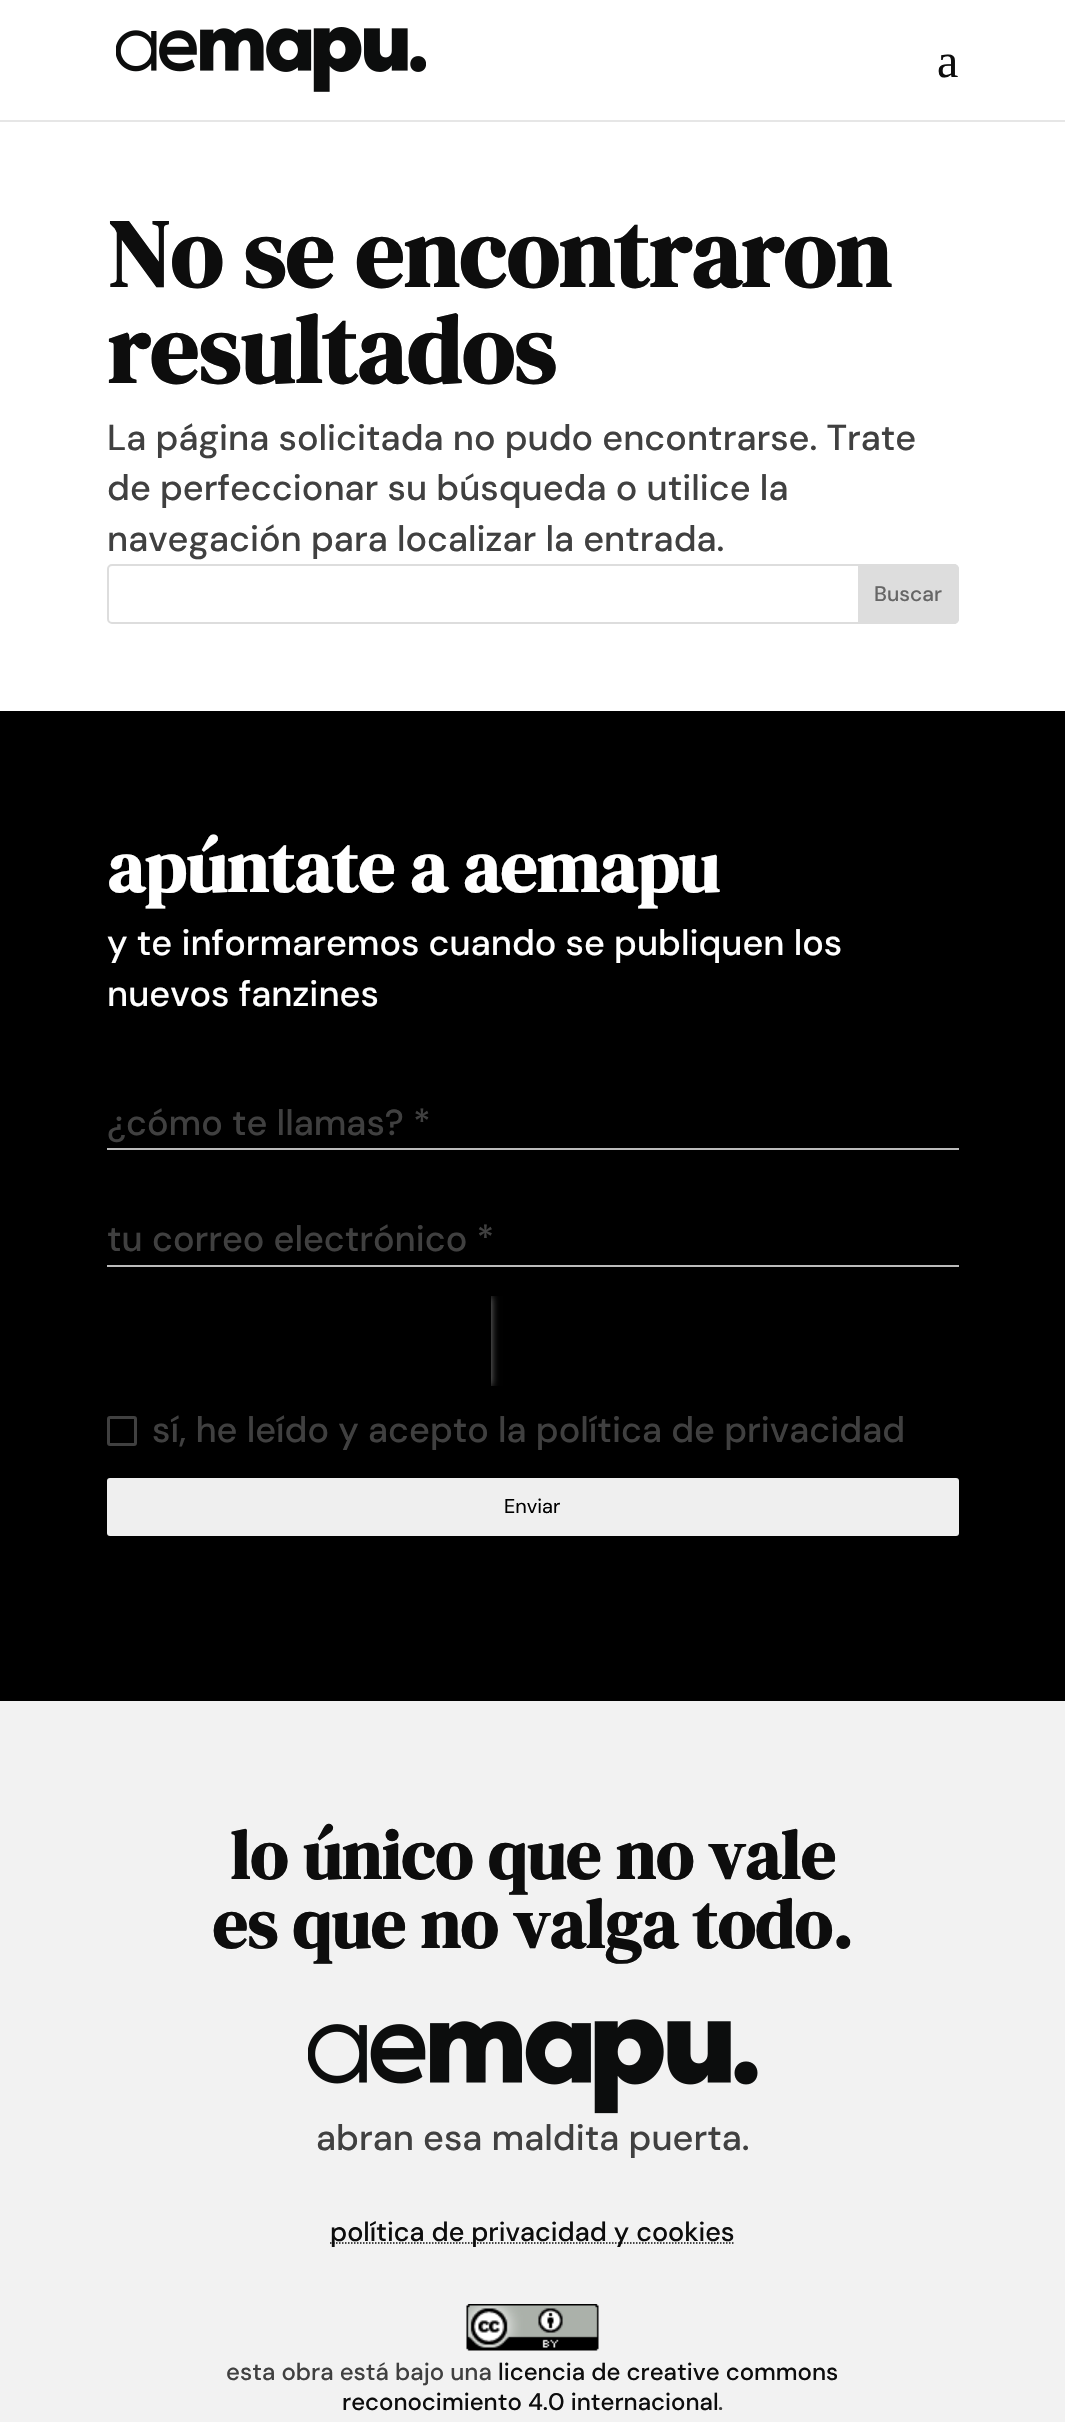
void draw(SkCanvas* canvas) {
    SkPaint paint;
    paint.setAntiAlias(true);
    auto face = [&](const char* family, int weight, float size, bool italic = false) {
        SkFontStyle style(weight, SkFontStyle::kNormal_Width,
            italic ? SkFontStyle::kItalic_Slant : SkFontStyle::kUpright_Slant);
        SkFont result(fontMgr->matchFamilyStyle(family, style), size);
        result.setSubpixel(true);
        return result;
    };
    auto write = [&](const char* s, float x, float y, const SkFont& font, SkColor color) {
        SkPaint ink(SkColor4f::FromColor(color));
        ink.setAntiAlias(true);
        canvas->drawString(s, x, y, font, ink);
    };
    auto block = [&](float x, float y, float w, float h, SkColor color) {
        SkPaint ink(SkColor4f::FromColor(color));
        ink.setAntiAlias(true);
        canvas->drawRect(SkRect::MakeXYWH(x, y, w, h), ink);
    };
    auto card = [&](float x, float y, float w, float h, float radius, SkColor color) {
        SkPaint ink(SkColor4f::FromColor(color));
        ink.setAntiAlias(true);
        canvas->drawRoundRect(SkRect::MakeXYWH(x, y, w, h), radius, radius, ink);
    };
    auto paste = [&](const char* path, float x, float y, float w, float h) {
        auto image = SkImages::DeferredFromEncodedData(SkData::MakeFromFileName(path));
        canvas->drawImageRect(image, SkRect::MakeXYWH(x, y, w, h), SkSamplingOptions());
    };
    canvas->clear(SK_ColorWHITE);
    block(0, 120, 1065, 2, SkColorSetRGB(230, 230, 230));
    paste("pic1.png", 116, 27, 310, 65);
    auto kFont1 = face("Liberation Serif", 400, 48);
    write("a", 937, 77, kFont1, SkColorSetRGB(13, 13, 13));
    auto kFont2 = face("DM Serif Display", 700, 96);
    write("No se encontraron", 107, 287, kFont2, SkColorSetRGB(13, 13, 13));
    write("resultados", 107, 383, kFont2, SkColorSetRGB(13, 13, 13));
    auto kFont3 = face("DM Sans", 500, 36);
    write("La página solicitada no pudo encontrarse. Trate", 107, 450, kFont3, SkColorSetRGB(64, 64, 64));
    write("de perfeccionar su búsqueda o utilice la", 107, 500, kFont3, SkColorSetRGB(64, 64, 64));
    write("navegación para localizar la entrada.", 107, 551, kFont3, SkColorSetRGB(64, 64, 64));
    paint.setStyle(SkPaint::kStroke_Style);
    paint.setStrokeWidth(2);
    paint.setColor(SkColorSetRGB(221, 221, 221));
    canvas->drawRoundRect(SkRect::MakeXYWH(108, 565, 850, 58), 4, 4, paint);
    paint.setStyle(SkPaint::kFill_Style);
    canvas->drawPath(SkPathBuilder().moveTo(859, 565).lineTo(954, 565).cubicTo(956, 565, 958, 567, 958, 569).lineTo(958, 619).cubicTo(958, 621, 956, 623, 954, 623).lineTo(859, 623).close().detach(), paint);
    paint.setStyle(SkPaint::kStroke_Style);
    canvas->drawPath(SkPathBuilder().moveTo(859, 565).lineTo(954, 565).cubicTo(956, 565, 958, 567, 958, 569).lineTo(958, 619).cubicTo(958, 621, 956, 623, 954, 623).lineTo(859, 623).close().detach(), paint);
    auto kFont4 = face("DM Sans", 500, 21);
    write("Buscar", 874, 601, kFont4, SkColorSetRGB(102, 102, 102));
    block(0, 711, 1065, 990, SK_ColorBLACK);
    auto kFont5 = face("DM Serif Display", 700, 72);
    write("apúntate a aemapu", 107, 892, kFont5, SK_ColorWHITE);
    write("y te informaremos cuando se publiquen los", 107, 955, kFont3, SK_ColorWHITE);
    write("nuevos fanzines", 107, 1006, kFont3, SK_ColorWHITE);
    write("¿cómo te llamas? *", 107, 1135, kFont3, SkColorSetRGB(64, 64, 64));
    block(107, 1148, 852, 2, SkColorSetRGB(187, 187, 187));
    write("tu correo electrónico *", 107, 1251, kFont3, SkColorSetRGB(64, 64, 64));
    block(107, 1265, 852, 2, SkColorSetRGB(187, 187, 187));
    canvas->save();
    canvas->clipRect(SkRect::MakeXYWH(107, 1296, 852, 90));
    canvas->clipPath(SkPathBuilder(SkPathFillType::kEvenOdd).moveTo(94, 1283).lineTo(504, 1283).lineTo(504, 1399).lineTo(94, 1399).close().moveTo(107, 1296).lineTo(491, 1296).lineTo(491, 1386).lineTo(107, 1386).close().detach(), true);
    paint.setStyle(SkPaint::kFill_Style);
    paint.setColor(SkColorSetRGB(128, 128, 128));
    paint.setMaskFilter(SkMaskFilter::MakeBlur(kNormal_SkBlurStyle, 4));
    canvas->drawRect(SkRect::MakeXYWH(107, 1296, 384, 90), paint);
    paint.setMaskFilter(nullptr);
    canvas->restore();
    paint.setStyle(SkPaint::kStroke_Style);
    paint.setStrokeWidth(3);
    paint.setColor(SkColorSetRGB(64, 64, 64));
    canvas->drawRoundRect(SkRect::MakeXYWH(108.5f, 1417.5f, 27, 27), 1.5f, 1.5f, paint);
    write("sí, he leído y acepto la política de privacidad", 152, 1442, kFont3, SkColorSetRGB(64, 64, 64));
    card(107, 1478, 852, 58, 3, SkColorSetRGB(239, 239, 239));
    auto kFont6 = face("DM Sans", 400, 20);
    write("Enviar", 504, 1513, kFont6, SK_ColorBLACK);
    block(0, 1701, 1065, 721, SkColorSetRGB(242, 242, 242));
    auto kFont7 = face("DM Serif Display", 700, 69);
    write("lo único que no vale", 230, 1879, kFont7, SkColorSetRGB(13, 13, 13));
    write("es que no valga todo.", 212, 1948, kFont7, SkColorSetRGB(13, 13, 13));
    paste("pic2.png", 308, 2019, 450, 95);
    write("abran esa maldita puerta.", 316, 2150, kFont3, SkColorSetRGB(64, 64, 64));
    paint.setStrokeWidth(1.5f);
    paint.setColor(SkColorSetRGB(13, 13, 13));
    paint.setPathEffect(SkDashPathEffect::Make({{1.5f, 1.5f}}, 0));
    canvas->drawPath(SkPathBuilder().moveTo(330, 2243).lineTo(735, 2243).detach(), paint);
    paint.setPathEffect(nullptr);
    auto kFont8 = face("DM Sans", 500, 27);
    write("política de privacidad y cookies", 330, 2241, kFont8, SkColorSetRGB(13, 13, 13));
    paste("pic3.png", 466, 2304, 133, 47);
    auto kFont9 = face("DM Sans", 500, 24);
    write("esta obra está bajo una", 226, 2380, kFont9, SkColorSetRGB(64, 64, 64));
    write("licencia de creative commons", 498, 2380, kFont9, SkColorSetRGB(13, 13, 13));
    write("reconocimiento 4.0 internacional", 342, 2410, kFont9, SkColorSetRGB(13, 13, 13));
    write(".", 718, 2410, kFont9, SkColorSetRGB(64, 64, 64));
}
